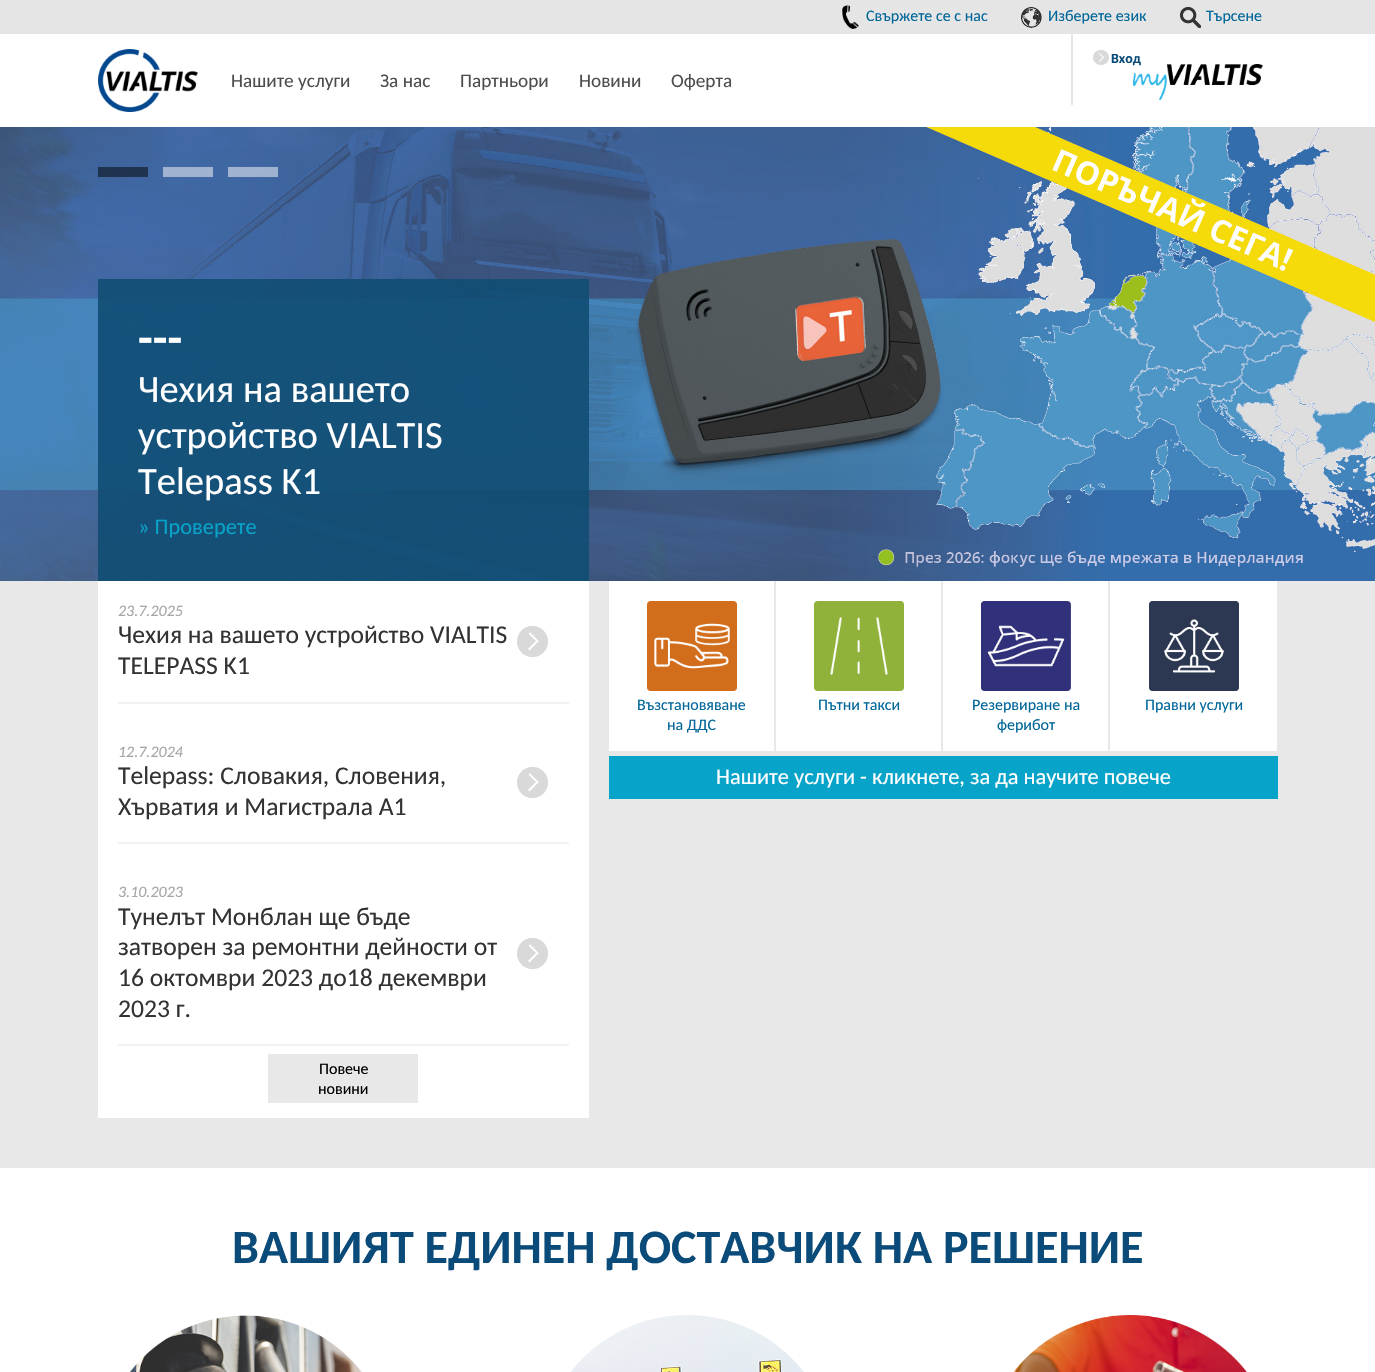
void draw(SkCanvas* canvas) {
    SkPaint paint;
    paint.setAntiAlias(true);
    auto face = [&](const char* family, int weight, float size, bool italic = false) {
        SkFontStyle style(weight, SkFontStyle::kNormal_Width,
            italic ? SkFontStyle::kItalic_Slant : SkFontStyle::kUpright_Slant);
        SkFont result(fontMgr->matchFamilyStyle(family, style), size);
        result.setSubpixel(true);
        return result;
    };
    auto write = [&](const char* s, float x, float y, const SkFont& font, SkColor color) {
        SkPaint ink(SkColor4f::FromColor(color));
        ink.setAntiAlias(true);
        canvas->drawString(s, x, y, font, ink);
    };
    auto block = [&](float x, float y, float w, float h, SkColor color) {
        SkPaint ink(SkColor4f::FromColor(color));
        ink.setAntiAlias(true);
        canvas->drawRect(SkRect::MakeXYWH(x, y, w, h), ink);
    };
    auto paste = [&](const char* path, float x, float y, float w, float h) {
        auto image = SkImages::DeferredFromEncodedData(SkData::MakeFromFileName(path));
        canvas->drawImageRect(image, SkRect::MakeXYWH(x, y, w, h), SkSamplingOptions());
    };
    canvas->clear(SK_ColorWHITE);
    block(0, 0, 1375, 34, SkColorSetRGB(229, 229, 229));
    paste("pic1.png", 842, 5, 17, 24);
    auto kFont1 = face("Carlito", 400, 16);
    write("Свържете се с нас", 866, 21, kFont1, SkColorSetRGB(0, 102, 153));
    paste("pic2.png", 1021, 7, 21, 21);
    write("Изберете език", 1048, 21, kFont1, SkColorSetRGB(0, 102, 153));
    paste("pic3.png", 1180, 7, 21, 21);
    write("Търсене", 1206, 21, kFont1, SkColorSetRGB(0, 102, 153));
    paste("pic4.png", 98, 49, 100, 63);
    block(1071, 34, 2, 71, SkColorSetRGB(229, 229, 229));
    paste("pic5.png", 1093, 50, 16, 15);
    paste("pic6.png", 1133, 64, 130, 36);
    auto kFont2 = face("Carlito", 700, 14);
    write("Вход", 1111, 63, kFont2, SkColorSetRGB(11, 75, 121));
    auto kFont3 = face("Carlito", 400, 19.25f);
    write("Нашите услуги", 231, 87, kFont3, SkColorSetRGB(77, 77, 77));
    write("За нас", 380, 87, kFont3, SkColorSetRGB(77, 77, 77));
    write("Партньори", 460, 87, kFont3, SkColorSetRGB(77, 77, 77));
    write("Новини", 579, 87, kFont3, SkColorSetRGB(77, 77, 77));
    write("Оферта", 671, 87, kFont3, SkColorSetRGB(77, 77, 77));
    paste("pic7.png", 0, 127, 1375, 454);
    block(98, 167, 50, 10, SkColorSetARGB(128, 0, 0, 0));
    block(163, 167, 50, 10, SkColorSetARGB(128, 255, 255, 255));
    block(228, 167, 50, 10, SkColorSetARGB(128, 255, 255, 255));
    block(98, 279, 491, 302, SkColorSetARGB(230, 16, 76, 115));
    auto kFont4 = face("Carlito", 700, 48);
    write("---", 138, 354, kFont4, SK_ColorWHITE);
    auto kFont5 = face("Carlito", 400, 38.5f);
    write("Чехия на вашето", 138, 402, kFont5, SK_ColorWHITE);
    write("устройство VIALTIS", 138, 448, kFont5, SK_ColorWHITE);
    write("Telepass K1", 138, 494, kFont5, SK_ColorWHITE);
    auto kFont6 = face("Carlito", 400, 22.4f);
    write("» Проверете", 138, 534, kFont6, SkColorSetRGB(8, 163, 200));
    block(0, 581, 1375, 587, SkColorSetRGB(232, 232, 232));
    block(98, 581, 491, 537, SK_ColorWHITE);
    paste("pic8.png", 517, 626, 31, 31);
    block(118, 702, 451, 2, SkColorSetRGB(242, 242, 242));
    auto kFont7 = face("Carlito", 400, 16, true);
    write("23.7.2025", 118, 616, kFont7, SkColorSetRGB(166, 166, 166));
    auto kFont8 = face("Carlito", 400, 25.6f);
    write("Чехия на вашето устройство VIALTIS", 118, 643, kFont8, SkColorSetRGB(51, 51, 51));
    write("TELEPASS K1", 118, 674, kFont8, SkColorSetRGB(51, 51, 51));
    paste("pic8.png", 517, 767, 31, 31);
    block(118, 842, 451, 2, SkColorSetRGB(242, 242, 242));
    write("12.7.2024", 118, 757, kFont7, SkColorSetRGB(166, 166, 166));
    write("Telepass: Словакия, Словения,", 118, 784, kFont8, SkColorSetRGB(51, 51, 51));
    write("Хърватия и Магистрала A1", 118, 815, kFont8, SkColorSetRGB(51, 51, 51));
    paste("pic8.png", 517, 938, 31, 31);
    block(118, 1044, 451, 2, SkColorSetRGB(242, 242, 242));
    write("3.10.2023", 118, 897, kFont7, SkColorSetRGB(166, 166, 166));
    write("Тунелът Монблан ще бъде", 118, 925, kFont8, SkColorSetRGB(51, 51, 51));
    write("затворен за ремонтни дейности от", 118, 955, kFont8, SkColorSetRGB(51, 51, 51));
    write("16 октомври 2023 до18 декември", 118, 986, kFont8, SkColorSetRGB(51, 51, 51));
    write("2023 г.", 118, 1017, kFont8, SkColorSetRGB(51, 51, 51));
    block(268, 1054, 150, 49, SkColorSetRGB(232, 232, 232));
    write("Повече", 319, 1074, kFont1, SK_ColorBLACK);
    write("новини", 318, 1094, kFont1, SK_ColorBLACK);
    block(609, 581, 165, 170, SK_ColorWHITE);
    paste("pic9.png", 647, 601, 90, 90);
    write("Възстановяване", 637, 710, kFont1, SkColorSetRGB(0, 102, 153));
    write("на ДДС", 667, 730, kFont1, SkColorSetRGB(0, 102, 153));
    block(776, 581, 165, 170, SK_ColorWHITE);
    paste("pic10.png", 814, 601, 90, 90);
    write("Пътни такси", 818, 710, kFont1, SkColorSetRGB(0, 102, 153));
    block(943, 581, 165, 170, SK_ColorWHITE);
    paste("pic11.png", 981, 601, 90, 90);
    write("Резервиране на", 972, 710, kFont1, SkColorSetRGB(0, 102, 153));
    write("ферибот", 997, 730, kFont1, SkColorSetRGB(0, 102, 153));
    block(1110, 581, 167, 170, SK_ColorWHITE);
    paste("pic12.png", 1149, 601, 90, 90);
    write("Правни услуги", 1145, 710, kFont1, SkColorSetRGB(0, 102, 153));
    block(609, 756, 669, 43, SkColorSetRGB(8, 163, 200));
    write("Нашите услуги - кликнете, за да научите повече", 716, 784, kFont6, SK_ColorWHITE);
    write("ВАШИЯТ ЕДИНЕН ДОСТАВЧИК НА РЕШЕНИЕ", 232, 1263, kFont4, SkColorSetRGB(11, 75, 121));
    paste("pic13.png", 129, 1315, 233, 57);
    paste("pic14.png", 571, 1315, 233, 57);
    paste("pic15.png", 1013, 1315, 234, 57);
}
